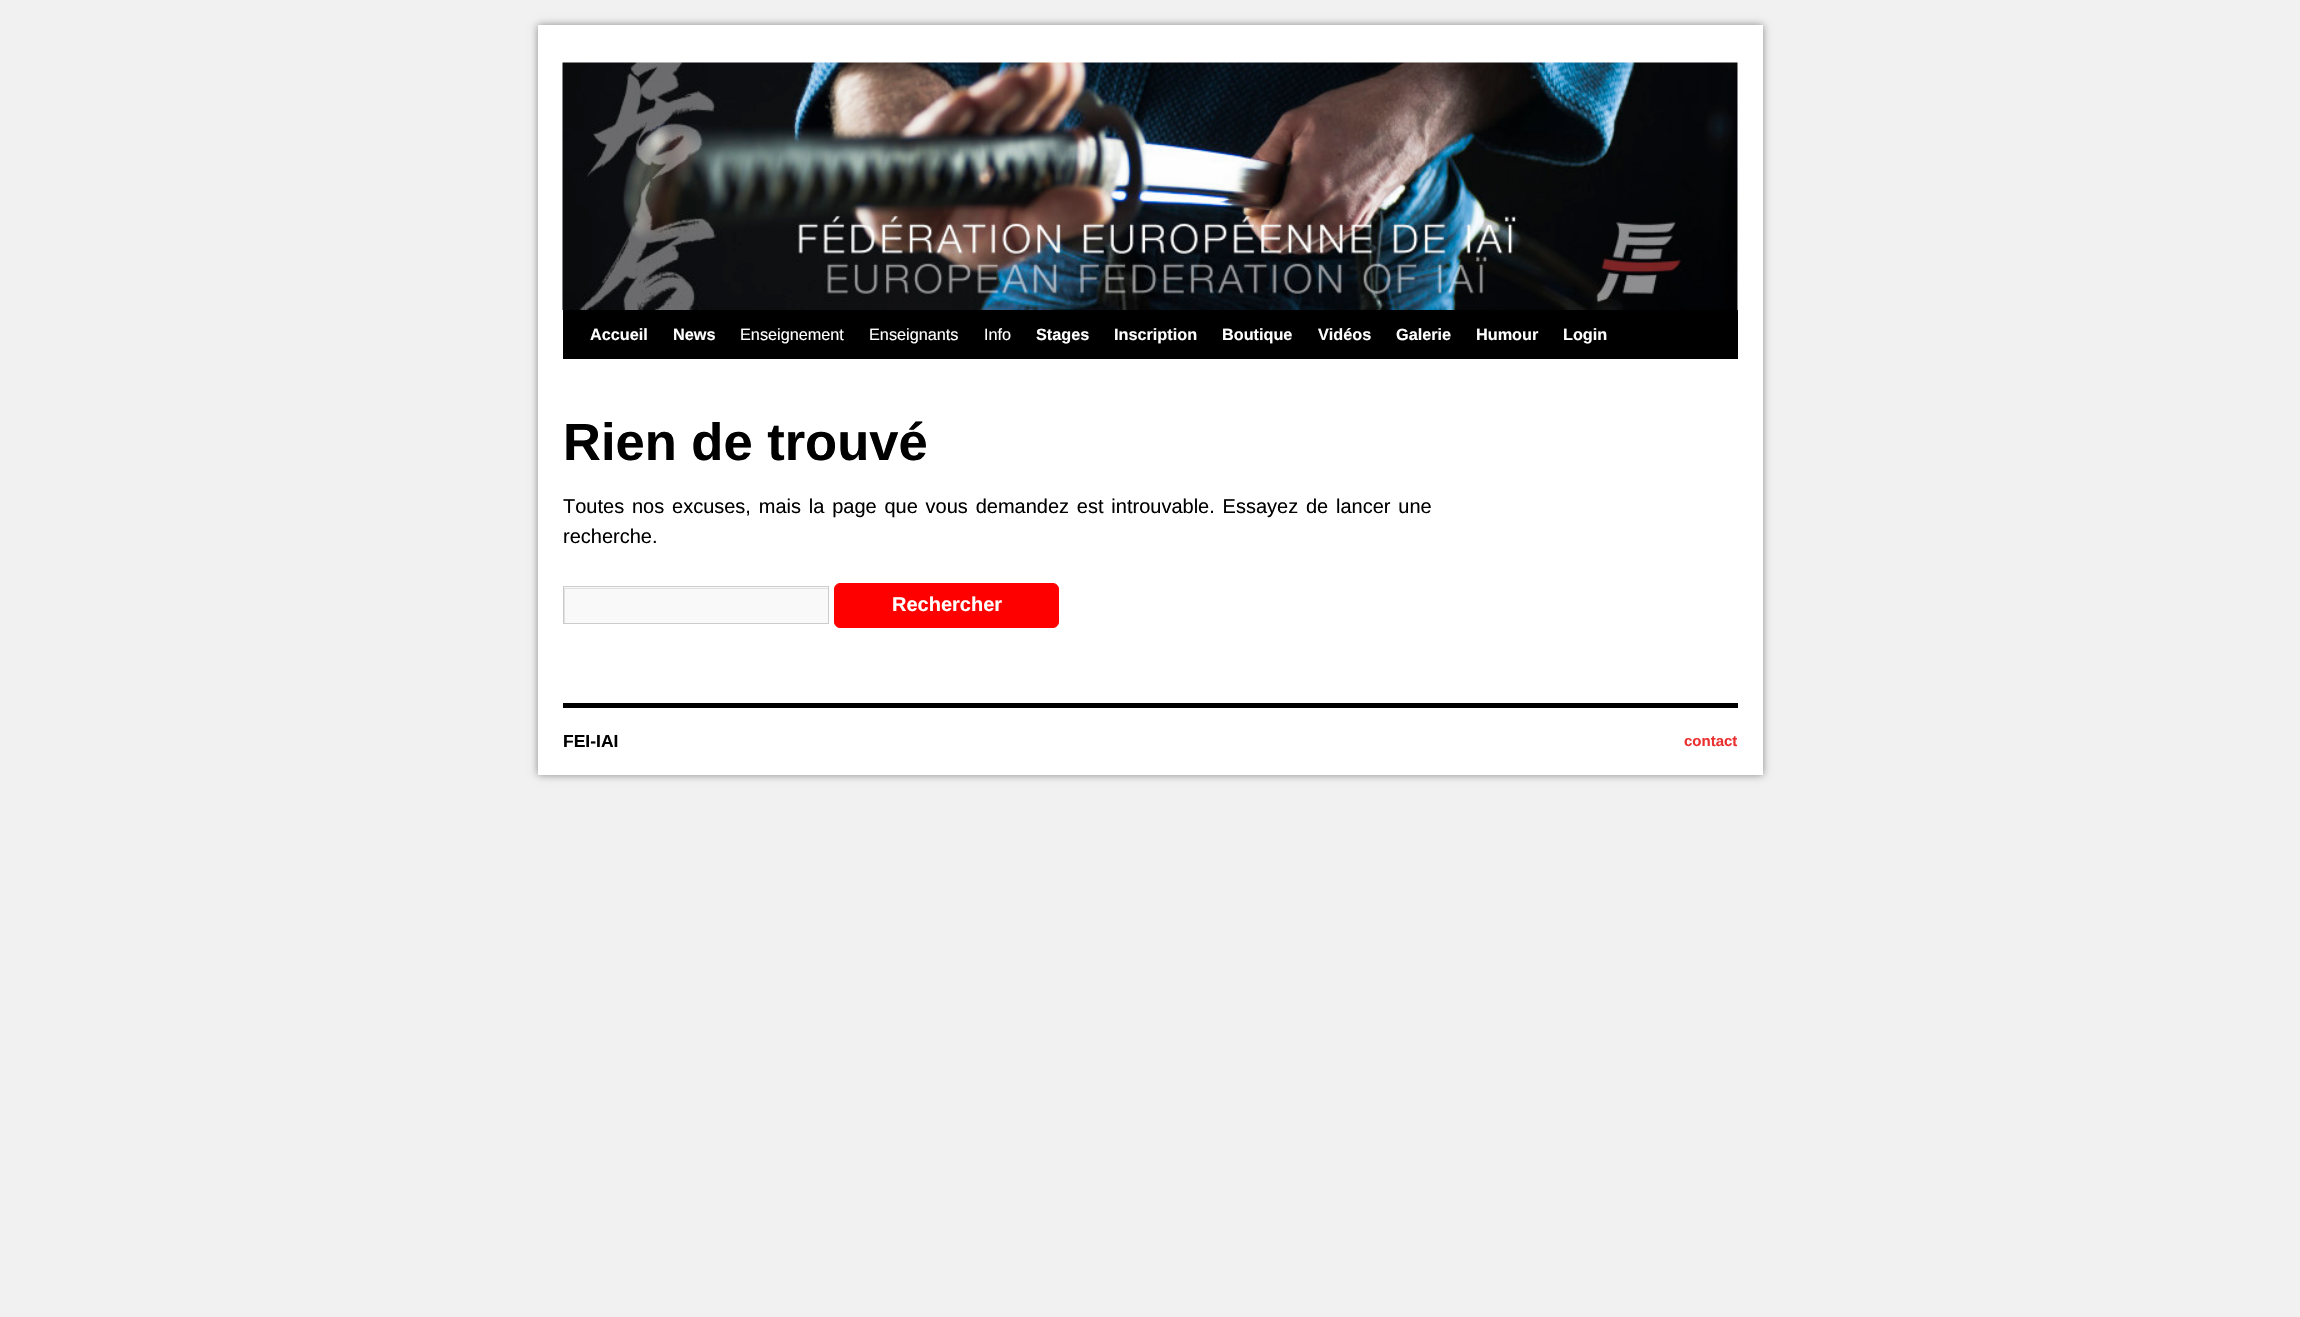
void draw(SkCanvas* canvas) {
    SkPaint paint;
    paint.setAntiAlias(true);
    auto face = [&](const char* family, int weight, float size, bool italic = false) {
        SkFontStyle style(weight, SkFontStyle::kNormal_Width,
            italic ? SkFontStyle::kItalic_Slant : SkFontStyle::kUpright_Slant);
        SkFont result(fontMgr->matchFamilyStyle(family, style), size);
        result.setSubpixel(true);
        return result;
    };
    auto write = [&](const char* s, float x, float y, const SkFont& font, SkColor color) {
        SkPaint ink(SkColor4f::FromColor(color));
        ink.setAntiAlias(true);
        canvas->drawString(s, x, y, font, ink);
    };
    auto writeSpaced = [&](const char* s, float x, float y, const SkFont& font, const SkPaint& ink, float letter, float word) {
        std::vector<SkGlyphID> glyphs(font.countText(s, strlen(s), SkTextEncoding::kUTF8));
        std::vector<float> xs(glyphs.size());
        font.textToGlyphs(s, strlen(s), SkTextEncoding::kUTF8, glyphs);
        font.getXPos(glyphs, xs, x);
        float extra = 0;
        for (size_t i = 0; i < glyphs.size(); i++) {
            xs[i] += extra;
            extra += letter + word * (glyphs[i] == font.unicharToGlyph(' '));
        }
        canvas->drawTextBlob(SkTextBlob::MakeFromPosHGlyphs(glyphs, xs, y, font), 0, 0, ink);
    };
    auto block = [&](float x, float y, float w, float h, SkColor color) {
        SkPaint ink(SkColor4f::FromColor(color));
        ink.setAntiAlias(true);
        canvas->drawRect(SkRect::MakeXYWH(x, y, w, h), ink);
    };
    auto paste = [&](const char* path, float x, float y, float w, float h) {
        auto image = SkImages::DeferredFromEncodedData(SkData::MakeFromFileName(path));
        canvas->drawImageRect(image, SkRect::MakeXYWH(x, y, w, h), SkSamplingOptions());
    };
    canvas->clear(SkColorSetRGB(241, 241, 241));
    paint.setColor(SkColorSetRGB(136, 136, 136));
    paint.setMaskFilter(SkMaskFilter::MakeBlur(kNormal_SkBlurStyle, 4));
    canvas->drawRect(SkRect::MakeXYWH(538, 25, 1225, 750), paint);
    paint.setMaskFilter(nullptr);
    block(538, 25, 1225, 750, SK_ColorWHITE);
    block(563, 310, 1175, 49, SK_ColorBLACK);
    paste("pic1.png", 562, 62, 1176, 248);
    auto kFont1 = face("Liberation Sans", 700, 16.25f);
    write("Accueil", 590, 340, kFont1, SK_ColorWHITE);
    write("News", 673, 340, kFont1, SK_ColorWHITE);
    auto kFont2 = face("Liberation Sans", 400, 16.25f);
    write("Enseignement", 740, 340, kFont2, SK_ColorWHITE);
    write("Enseignants", 869, 340, kFont2, SK_ColorWHITE);
    write("Info", 984, 340, kFont2, SK_ColorWHITE);
    write("Stages", 1036, 340, kFont1, SK_ColorWHITE);
    write("Inscription", 1114, 340, kFont1, SK_ColorWHITE);
    write("Boutique", 1222, 340, kFont1, SK_ColorWHITE);
    write("Vidéos", 1318, 340, kFont1, SK_ColorWHITE);
    write("Galerie", 1396, 340, kFont1, SK_ColorWHITE);
    write("Humour", 1476, 340, kFont1, SK_ColorWHITE);
    write("Login", 1563, 340, kFont1, SK_ColorWHITE);
    auto kFont3 = face("Liberation Sans", 700, 52.5f);
    write("Rien de trouvé", 563, 460, kFont3, SK_ColorBLACK);
    auto kFont4 = face("Liberation Sans", 400, 20);
    paint.setColor(SK_ColorBLACK);
    writeSpaced("Toutes nos excuses, mais la page que vous demandez est introuvable. Essayez de lancer une", 563, 513, kFont4, paint, 0, 2.25f);
    write("recherche.", 563, 543, kFont4, SK_ColorBLACK);
    block(564, 587, 264, 36, SkColorSetRGB(249, 249, 249));
    canvas->save();
    canvas->clipRect(SkRect::MakeXYWH(564, 588, 264, 35));
    paint.setColor(SkColorSetRGB(224, 224, 224));
    canvas->drawPath(SkPathBuilder(SkPathFillType::kEvenOdd).moveTo(440, 464).lineTo(951, 464).lineTo(951, 746).lineTo(440, 746).close().moveTo(565, 589).lineTo(829, 589).lineTo(829, 624).lineTo(565, 624).close().detach(), paint);
    canvas->restore();
    paint.setStyle(SkPaint::kStroke_Style);
    paint.setStrokeWidth(1);
    paint.setColor(SkColorSetRGB(204, 204, 204));
    canvas->drawRect(SkRect::MakeXYWH(563.5f, 586.5f, 265, 37), paint);
    paint.setStyle(SkPaint::kFill_Style);
    paint.setColor(SkColorSetRGB(255, 0, 0));
    canvas->drawRoundRect(SkRect::MakeXYWH(834.5f, 583.5f, 224, 44), 5.5f, 5.5f, paint);
    paint.setStyle(SkPaint::kStroke_Style);
    canvas->drawRoundRect(SkRect::MakeXYWH(834.5f, 583.5f, 224, 44), 5.5f, 5.5f, paint);
    auto kFont5 = face("Liberation Sans", 700, 20);
    write("Rechercher", 892, 611, kFont5, SK_ColorWHITE);
    block(563, 703, 1175, 5, SK_ColorBLACK);
    auto kFont6 = face("Liberation Sans", 700, 17.5f);
    write("FEI-IAI", 563, 747, kFont6, SK_ColorBLACK);
    auto kFont7 = face("Liberation Sans", 700, 15);
    write("contact", 1684, 746, kFont7, SkColorSetRGB(235, 47, 47));
}
